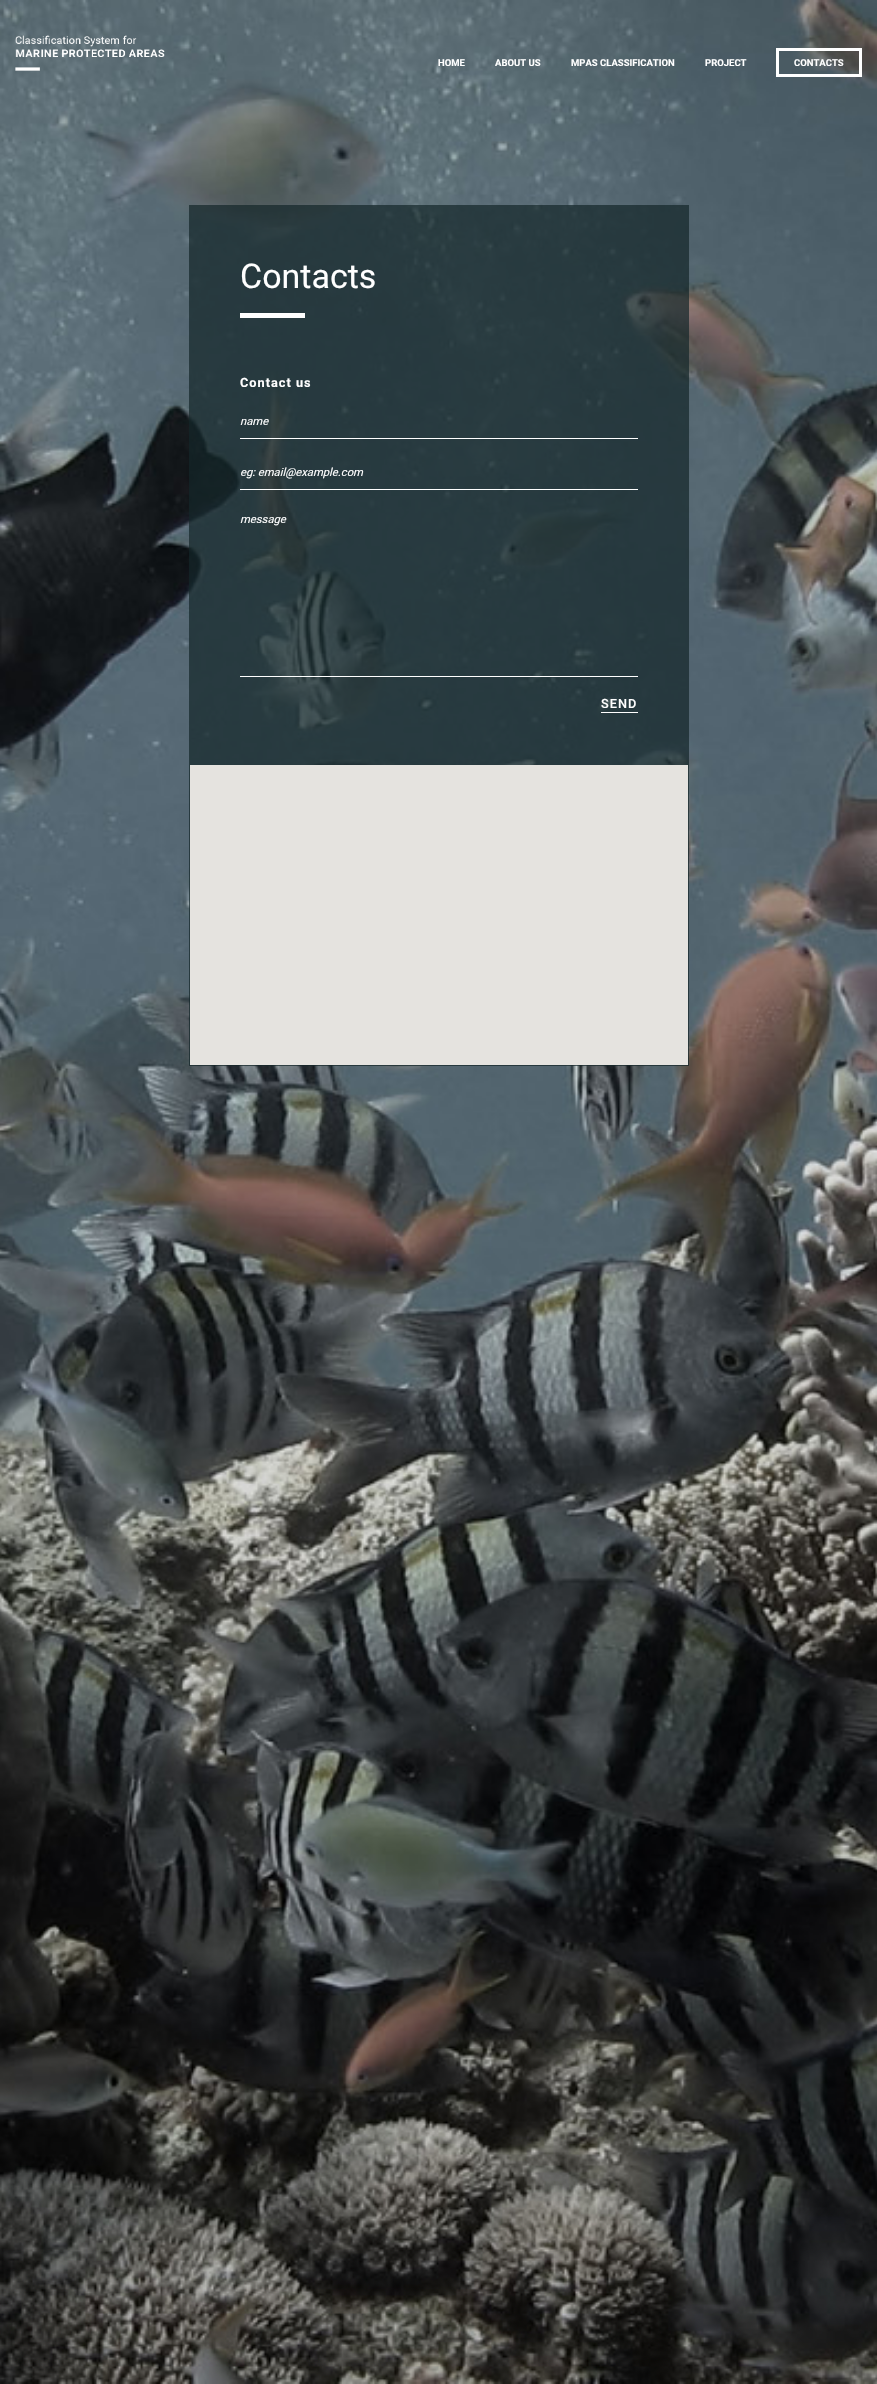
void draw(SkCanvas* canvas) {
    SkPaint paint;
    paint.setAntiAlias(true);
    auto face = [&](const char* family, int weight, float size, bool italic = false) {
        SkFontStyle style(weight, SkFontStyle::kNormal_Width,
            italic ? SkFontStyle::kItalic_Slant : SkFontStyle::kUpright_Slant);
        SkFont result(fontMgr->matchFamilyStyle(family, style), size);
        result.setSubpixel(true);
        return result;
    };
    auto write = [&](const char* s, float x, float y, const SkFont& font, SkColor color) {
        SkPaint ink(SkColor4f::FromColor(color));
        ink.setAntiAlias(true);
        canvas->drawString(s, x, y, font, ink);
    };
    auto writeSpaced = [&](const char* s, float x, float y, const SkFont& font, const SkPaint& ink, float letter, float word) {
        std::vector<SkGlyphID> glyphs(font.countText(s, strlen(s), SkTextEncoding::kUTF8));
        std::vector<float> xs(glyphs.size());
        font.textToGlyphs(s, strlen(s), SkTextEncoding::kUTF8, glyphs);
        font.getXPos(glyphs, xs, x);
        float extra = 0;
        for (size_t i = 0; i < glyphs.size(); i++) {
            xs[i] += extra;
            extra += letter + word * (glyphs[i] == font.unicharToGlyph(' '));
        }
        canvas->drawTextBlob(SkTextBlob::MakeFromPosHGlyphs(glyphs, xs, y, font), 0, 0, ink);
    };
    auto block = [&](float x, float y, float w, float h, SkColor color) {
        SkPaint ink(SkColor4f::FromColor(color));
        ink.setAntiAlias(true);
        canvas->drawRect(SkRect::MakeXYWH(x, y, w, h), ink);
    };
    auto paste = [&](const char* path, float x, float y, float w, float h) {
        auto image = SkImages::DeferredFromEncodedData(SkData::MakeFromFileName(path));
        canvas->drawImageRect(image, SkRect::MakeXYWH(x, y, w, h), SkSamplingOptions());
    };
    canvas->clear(SK_ColorWHITE);
    paste("pic2.png", 0, 0, 877, 2384);
    paste("pic1.png", 15, 35, 150, 36);
    auto kFont1 = face("Roboto", 700, 9.5f);
    write("HOME", 438, 66, kFont1, SK_ColorWHITE);
    write("ABOUT US", 495, 66, kFont1, SK_ColorWHITE);
    write("MPAS CLASSIFICATION", 571, 66, kFont1, SK_ColorWHITE);
    write("PROJECT", 705, 66, kFont1, SK_ColorWHITE);
    paint.setStyle(SkPaint::kStroke_Style);
    paint.setStrokeWidth(3);
    paint.setColor(SK_ColorWHITE);
    canvas->drawRect(SkRect::MakeXYWH(777.5f, 49.5f, 83, 26), paint);
    write("CONTACTS", 794, 66, kFont1, SK_ColorWHITE);
    block(189, 205, 500, 559, SkColorSetARGB(179, 19, 37, 40));
    auto kFont2 = face("Roboto", 400, 34);
    write("Contacts", 240, 288, kFont2, SK_ColorWHITE);
    block(240, 313, 65, 5, SK_ColorWHITE);
    auto kFont3 = face("Roboto", 700, 12.75f);
    paint.setStyle(SkPaint::kFill_Style);
    writeSpaced("Contact us", 240, 387, kFont3, paint, 1, 0);
    block(240, 438, 398, 1, SK_ColorWHITE);
    auto kFont4 = face("Roboto", 400, 11.25f, true);
    write("name", 240, 425, kFont4, SK_ColorWHITE);
    block(240, 489, 398, 1, SK_ColorWHITE);
    write("eg: email@example.com", 240, 476, kFont4, SK_ColorWHITE);
    block(240, 676, 398, 1, SK_ColorWHITE);
    write("message", 240, 523, kFont4, SK_ColorWHITE);
    block(601, 712, 37, 1, SK_ColorWHITE);
    auto kFont5 = face("Roboto", 500, 12.75f);
    writeSpaced("SEND", 601, 708, kFont5, paint, 1, 0);
    block(189, 764, 500, 302, SkColorSetARGB(179, 19, 37, 40));
    block(190, 765, 498, 300, SkColorSetRGB(229, 227, 223));
}
